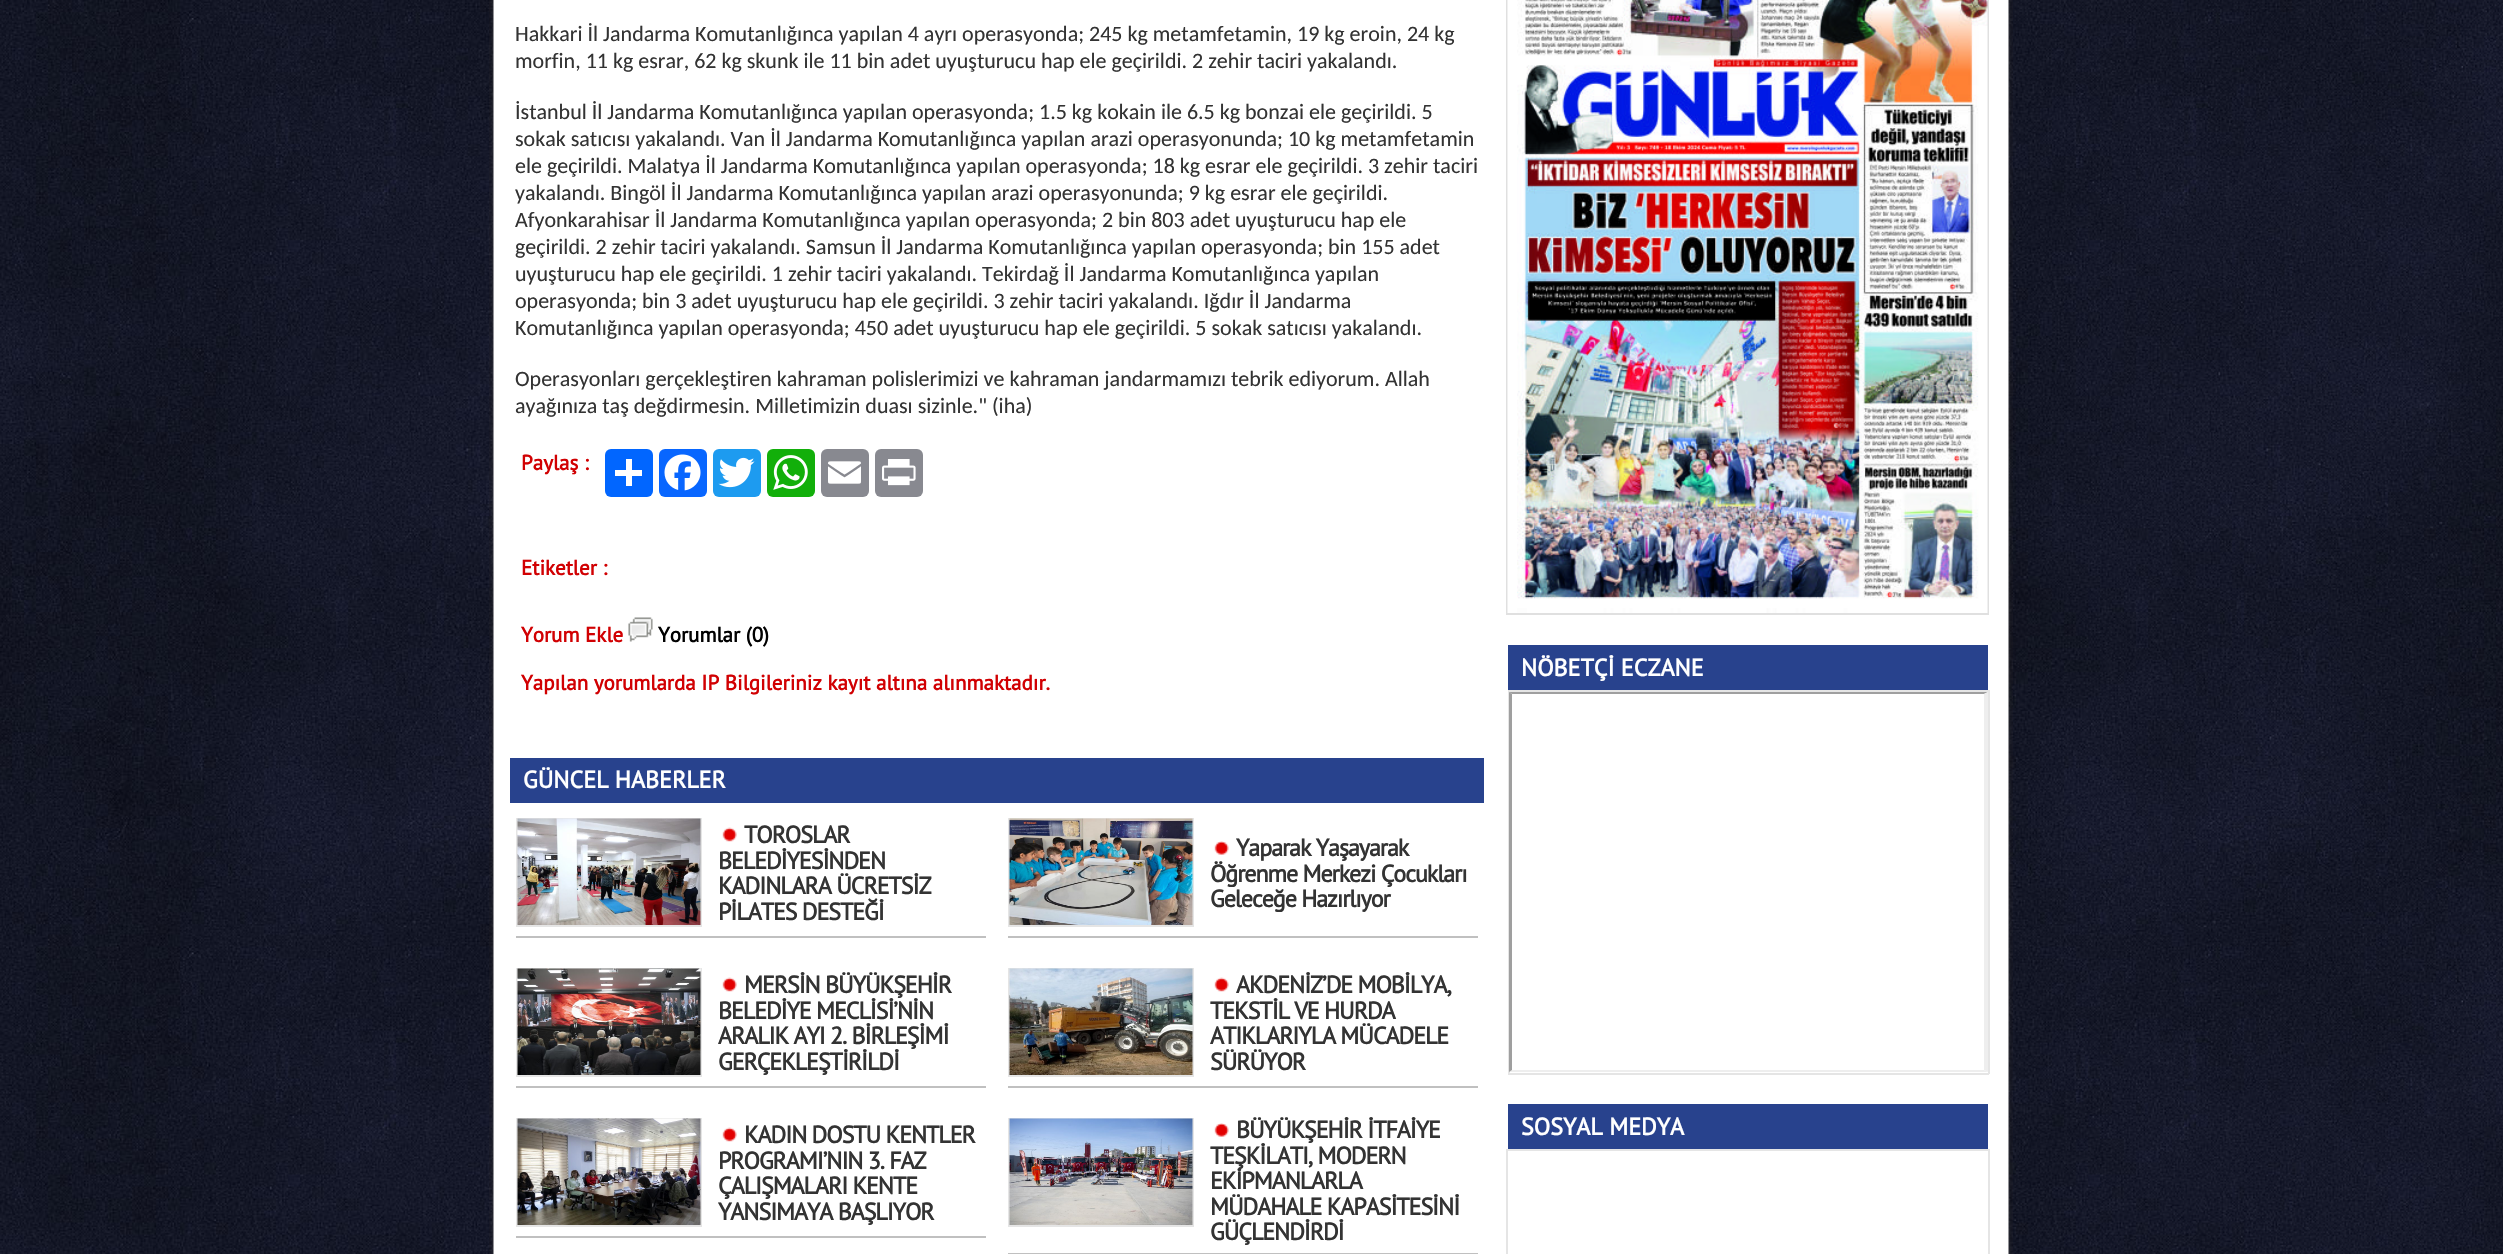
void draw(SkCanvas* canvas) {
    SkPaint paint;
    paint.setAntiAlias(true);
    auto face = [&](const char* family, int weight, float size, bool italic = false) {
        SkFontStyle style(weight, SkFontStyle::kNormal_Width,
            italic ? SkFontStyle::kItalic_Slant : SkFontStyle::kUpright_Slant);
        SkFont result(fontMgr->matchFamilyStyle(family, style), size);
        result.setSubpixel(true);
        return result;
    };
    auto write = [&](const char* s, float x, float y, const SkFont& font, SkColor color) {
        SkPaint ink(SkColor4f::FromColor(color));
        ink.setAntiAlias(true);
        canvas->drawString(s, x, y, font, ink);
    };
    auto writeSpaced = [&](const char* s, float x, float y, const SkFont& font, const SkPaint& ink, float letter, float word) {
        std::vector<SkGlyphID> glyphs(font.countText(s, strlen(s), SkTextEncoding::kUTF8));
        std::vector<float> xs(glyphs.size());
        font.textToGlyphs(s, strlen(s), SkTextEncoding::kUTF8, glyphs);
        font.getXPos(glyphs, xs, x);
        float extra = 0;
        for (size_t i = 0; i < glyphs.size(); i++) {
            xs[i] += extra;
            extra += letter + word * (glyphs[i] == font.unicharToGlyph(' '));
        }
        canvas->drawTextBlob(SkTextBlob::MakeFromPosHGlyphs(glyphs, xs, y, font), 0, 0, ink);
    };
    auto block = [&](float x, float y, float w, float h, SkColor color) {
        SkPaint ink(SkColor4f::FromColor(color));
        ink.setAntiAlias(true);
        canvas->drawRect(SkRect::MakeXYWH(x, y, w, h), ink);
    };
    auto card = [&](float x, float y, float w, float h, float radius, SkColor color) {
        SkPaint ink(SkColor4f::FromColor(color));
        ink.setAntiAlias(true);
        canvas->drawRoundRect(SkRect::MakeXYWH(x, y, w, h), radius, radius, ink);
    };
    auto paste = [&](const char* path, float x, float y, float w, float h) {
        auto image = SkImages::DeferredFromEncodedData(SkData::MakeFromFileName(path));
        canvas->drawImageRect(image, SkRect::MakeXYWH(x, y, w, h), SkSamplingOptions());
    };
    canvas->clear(SK_ColorWHITE);
    paste("pic1.png", 0, 0, 2503, 1254);
    paste("pic2.png", 489, 0, 1524, 1254);
    auto kFont1 = face("Carlito", 400, 22);
    write("Hakkari İl Jandarma Komutanlığınca yapılan 4 ayrı operasyonda; 245 kg metamfetamin, 19 kg eroin, 24 kg", 515, 41, kFont1, SkColorSetRGB(51, 51, 51));
    write("morfin, 11 kg esrar, 62 kg skunk ile 11 bin adet uyuşturucu hap ele geçirildi. 2 zehir taciri yakalandı.", 515, 68, kFont1, SkColorSetRGB(51, 51, 51));
    write("İstanbul İl Jandarma Komutanlığınca yapılan operasyonda; 1.5 kg kokain ile 6.5 kg bonzai ele geçirildi. 5", 515, 119, kFont1, SkColorSetRGB(51, 51, 51));
    write("sokak satıcısı yakalandı. Van İl Jandarma Komutanlığınca yapılan arazi operasyonunda; 10 kg metamfetamin", 515, 146, kFont1, SkColorSetRGB(51, 51, 51));
    write("ele geçirildi. Malatya İl Jandarma Komutanlığınca yapılan operasyonda; 18 kg esrar ele geçirildi. 3 zehir taciri", 515, 173, kFont1, SkColorSetRGB(51, 51, 51));
    write("yakalandı. Bingöl İl Jandarma Komutanlığınca yapılan arazi operasyonunda; 9 kg esrar ele geçirildi.", 515, 200, kFont1, SkColorSetRGB(51, 51, 51));
    write("Afyonkarahisar İl Jandarma Komutanlığınca yapılan operasyonda; 2 bin 803 adet uyuşturucu hap ele", 515, 227, kFont1, SkColorSetRGB(51, 51, 51));
    write("geçirildi. 2 zehir taciri yakalandı. Samsun İl Jandarma Komutanlığınca yapılan operasyonda; bin 155 adet", 515, 254, kFont1, SkColorSetRGB(51, 51, 51));
    write("uyuşturucu hap ele geçirildi. 1 zehir taciri yakalandı. Tekirdağ İl Jandarma Komutanlığınca yapılan", 515, 281, kFont1, SkColorSetRGB(51, 51, 51));
    write("operasyonda; bin 3 adet uyuşturucu hap ele geçirildi. 3 zehir taciri yakalandı. Iğdır İl Jandarma", 515, 308, kFont1, SkColorSetRGB(51, 51, 51));
    write("Komutanlığınca yapılan operasyonda; 450 adet uyuşturucu hap ele geçirildi. 5 sokak satıcısı yakalandı.", 515, 335, kFont1, SkColorSetRGB(51, 51, 51));
    write("Operasyonları gerçekleştiren kahraman polislerimizi ve kahraman jandarmamızı tebrik ediyorum. Allah", 515, 386, kFont1, SkColorSetRGB(51, 51, 51));
    write("ayağınıza taş değdirmesin. Milletimizin duası sizinle.\" (iha)", 515, 413, kFont1, SkColorSetRGB(51, 51, 51));
    auto kFont2 = face("PT Sans", 700, 21);
    write("Paylaş :", 521, 470, kFont2, SkColorSetRGB(209, 0, 2));
    card(605, 449, 48, 48, 6, SkColorSetRGB(1, 102, 255));
    block(626, 459, 6, 27, SK_ColorWHITE);
    block(615, 470, 27, 6, SK_ColorWHITE);
    card(659, 449, 48, 48, 6, SkColorSetRGB(8, 102, 255));
    paste("pic3.png", 664, 454, 37, 37);
    card(713, 449, 48, 48, 6, SkColorSetRGB(29, 155, 240));
    paste("pic4.png", 718, 457, 37, 31);
    card(767, 449, 48, 48, 6, SkColorSetRGB(18, 175, 10));
    paste("pic5.png", 773, 455, 35, 35);
    card(821, 449, 48, 48, 6, SkColorSetRGB(136, 137, 144));
    paste("pic6.png", 828, 461, 33, 23);
    card(875, 449, 48, 48, 6, SkColorSetRGB(136, 137, 144));
    paste("pic7.png", 882, 459, 34, 27);
    write("Etiketler :", 521, 575, kFont2, SkColorSetRGB(209, 0, 2));
    write("Yorum Ekle", 521, 642, kFont2, SkColorSetRGB(209, 0, 2));
    paste("pic8.png", 628, 617, 25, 25);
    write("Yorumlar (0)", 658, 642, kFont2, SK_ColorBLACK);
    write("Yapılan yorumlarda IP Bilgileriniz kayıt altına alınmaktadır.", 521, 690, kFont2, SkColorSetRGB(209, 0, 2));
    block(510, 758, 974, 45, SkColorSetRGB(40, 66, 141));
    auto kFont3 = face("PT Sans", 700, 24);
    write("GÜNCEL HABERLER", 523, 788, kFont3, SK_ColorWHITE);
    paint.setStyle(SkPaint::kStroke_Style);
    paint.setStrokeWidth(2);
    paint.setColor(SkColorSetRGB(229, 229, 229));
    canvas->drawRect(SkRect::MakeXYWH(517, 819, 184, 107), paint);
    paste("pic9.png", 517, 818, 184, 107);
    paste("pic10.png", 722, 827, 15, 15);
    paint.setStyle(SkPaint::kFill_Style);
    paint.setColor(SkColorSetRGB(51, 51, 51));
    writeSpaced("TOROSLAR", 744, 843, kFont3, paint, -1.05f, 0);
    writeSpaced("BELEDİYESİNDEN", 718, 869, kFont3, paint, -1.05f, 0);
    writeSpaced("KADINLARA ÜCRETSİZ", 718, 894, kFont3, paint, -1.05f, 0);
    writeSpaced("PİLATES DESTEĞİ", 718, 920, kFont3, paint, -1.05f, 0);
    block(516, 936, 470, 2, SkColorSetRGB(192, 192, 192));
    paint.setStyle(SkPaint::kStroke_Style);
    paint.setColor(SkColorSetRGB(229, 229, 229));
    canvas->drawRect(SkRect::MakeXYWH(1009, 819, 184, 107), paint);
    paste("pic11.png", 1009, 818, 184, 107);
    paste("pic12.png", 1214, 841, 15, 14);
    paint.setStyle(SkPaint::kFill_Style);
    paint.setColor(SkColorSetRGB(51, 51, 51));
    writeSpaced("Yaparak Yaşayarak", 1236, 856, kFont3, paint, -1.05f, 0);
    writeSpaced("Öğrenme Merkezi Çocukları", 1210, 882, kFont3, paint, -1.05f, 0);
    writeSpaced("Geleceğe Hazırlıyor", 1210, 907, kFont3, paint, -1.05f, 0);
    block(1008, 936, 470, 2, SkColorSetRGB(192, 192, 192));
    paint.setStyle(SkPaint::kStroke_Style);
    paint.setColor(SkColorSetRGB(229, 229, 229));
    canvas->drawRect(SkRect::MakeXYWH(517, 969, 184, 107), paint);
    paste("pic13.png", 517, 968, 184, 107);
    paste("pic10.png", 722, 977, 15, 15);
    paint.setStyle(SkPaint::kFill_Style);
    paint.setColor(SkColorSetRGB(51, 51, 51));
    writeSpaced("MERSİN BÜYÜKŞEHİR", 744, 993, kFont3, paint, -1.05f, 0);
    writeSpaced("BELEDİYE MECLİSİ’NİN", 718, 1019, kFont3, paint, -1.05f, 0);
    writeSpaced("ARALIK AYI 2. BİRLEŞİMİ", 718, 1044, kFont3, paint, -1.05f, 0);
    writeSpaced("GERÇEKLEŞTİRİLDİ", 718, 1070, kFont3, paint, -1.05f, 0);
    block(516, 1086, 470, 2, SkColorSetRGB(192, 192, 192));
    paint.setStyle(SkPaint::kStroke_Style);
    paint.setColor(SkColorSetRGB(229, 229, 229));
    canvas->drawRect(SkRect::MakeXYWH(1009, 969, 184, 107), paint);
    paste("pic14.png", 1009, 968, 184, 107);
    paste("pic15.png", 1214, 977, 15, 15);
    paint.setStyle(SkPaint::kFill_Style);
    paint.setColor(SkColorSetRGB(51, 51, 51));
    writeSpaced("AKDENİZ’DE MOBİLYA,", 1236, 993, kFont3, paint, -1.05f, 0);
    writeSpaced("TEKSTİL VE HURDA", 1210, 1019, kFont3, paint, -1.05f, 0);
    writeSpaced("ATIKLARIYLA MÜCADELE", 1210, 1044, kFont3, paint, -1.05f, 0);
    writeSpaced("SÜRÜYOR", 1210, 1070, kFont3, paint, -1.05f, 0);
    block(1008, 1086, 470, 2, SkColorSetRGB(192, 192, 192));
    paint.setStyle(SkPaint::kStroke_Style);
    paint.setColor(SkColorSetRGB(229, 229, 229));
    canvas->drawRect(SkRect::MakeXYWH(517, 1119, 184, 107), paint);
    paste("pic16.png", 517, 1118, 184, 107);
    paste("pic10.png", 722, 1127, 15, 15);
    paint.setStyle(SkPaint::kFill_Style);
    paint.setColor(SkColorSetRGB(51, 51, 51));
    writeSpaced("KADIN DOSTU KENTLER", 744, 1143, kFont3, paint, -1.05f, 0);
    writeSpaced("PROGRAMI’NIN 3. FAZ", 718, 1169, kFont3, paint, -1.05f, 0);
    writeSpaced("ÇALIŞMALARI KENTE", 718, 1194, kFont3, paint, -1.05f, 0);
    writeSpaced("YANSIMAYA BAŞLIYOR", 718, 1220, kFont3, paint, -1.05f, 0);
    block(516, 1236, 470, 2, SkColorSetRGB(192, 192, 192));
    paint.setStyle(SkPaint::kStroke_Style);
    paint.setColor(SkColorSetRGB(229, 229, 229));
    canvas->drawRect(SkRect::MakeXYWH(1009, 1119, 184, 107), paint);
    paste("pic17.png", 1009, 1118, 184, 107);
    paste("pic12.png", 1214, 1123, 15, 14);
    paint.setStyle(SkPaint::kFill_Style);
    paint.setColor(SkColorSetRGB(51, 51, 51));
    writeSpaced("BÜYÜKŞEHİR İTFAİYE", 1236, 1138, kFont3, paint, -1.05f, 0);
    writeSpaced("TEŞKİLATI, MODERN", 1210, 1164, kFont3, paint, -1.05f, 0);
    writeSpaced("EKİPMANLARLA", 1210, 1189, kFont3, paint, -1.05f, 0);
    writeSpaced("MÜDAHALE KAPASİTESİNİ", 1210, 1215, kFont3, paint, -1.05f, 0);
    writeSpaced("GÜÇLENDİRDİ", 1210, 1240, kFont3, paint, -1.05f, 0);
    block(1008, 1253, 470, 1, SkColorSetRGB(192, 192, 192));
    paint.setStyle(SkPaint::kStroke_Style);
    paint.setColor(SkColorSetRGB(224, 224, 224));
    canvas->drawRect(SkRect::MakeXYWH(1507, -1, 481, 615), paint);
    paste("pic18.png", 1507, 0, 481, 613);
    block(1508, 645, 480, 45, SkColorSetRGB(40, 66, 141));
    write("NÖBETÇİ ECZANE", 1521, 676, kFont3, SK_ColorWHITE);
    block(1508, 690, 481, 2, SkColorSetRGB(229, 229, 229));
    block(1988, 690, 2, 384, SkColorSetRGB(229, 229, 229));
    block(1508, 1073, 481, 2, SkColorSetRGB(229, 229, 229));
    block(1508, 690, 2, 384, SkColorSetRGB(229, 229, 229));
    paint.setStyle(SkPaint::kFill_Style);
    paint.setColor(SkColorSetRGB(159, 159, 159));
    canvas->drawPath(SkPathBuilder().moveTo(1509, 692).lineTo(1988, 692).lineTo(1984, 694).lineTo(1512, 694).close().detach(), paint);
    paint.setColor(SkColorSetRGB(238, 238, 238));
    canvas->drawPath(SkPathBuilder().moveTo(1988, 692).lineTo(1988, 1072).lineTo(1984, 1070).lineTo(1984, 694).close().detach(), paint);
    canvas->drawPath(SkPathBuilder().moveTo(1988, 1072).lineTo(1509, 1072).lineTo(1512, 1070).lineTo(1984, 1070).close().detach(), paint);
    paint.setColor(SkColorSetRGB(159, 159, 159));
    canvas->drawPath(SkPathBuilder().moveTo(1509, 1072).lineTo(1509, 692).lineTo(1512, 694).lineTo(1512, 1070).close().detach(), paint);
    block(1508, 1104, 480, 45, SkColorSetRGB(40, 66, 141));
    write("SOSYAL MEDYA", 1521, 1135, kFont3, SK_ColorWHITE);
    block(1506, 1149, 483, 2, SkColorSetRGB(229, 229, 229));
    block(1988, 1149, 2, 105, SkColorSetRGB(229, 229, 229));
    block(1506, 1149, 2, 105, SkColorSetRGB(229, 229, 229));
}
